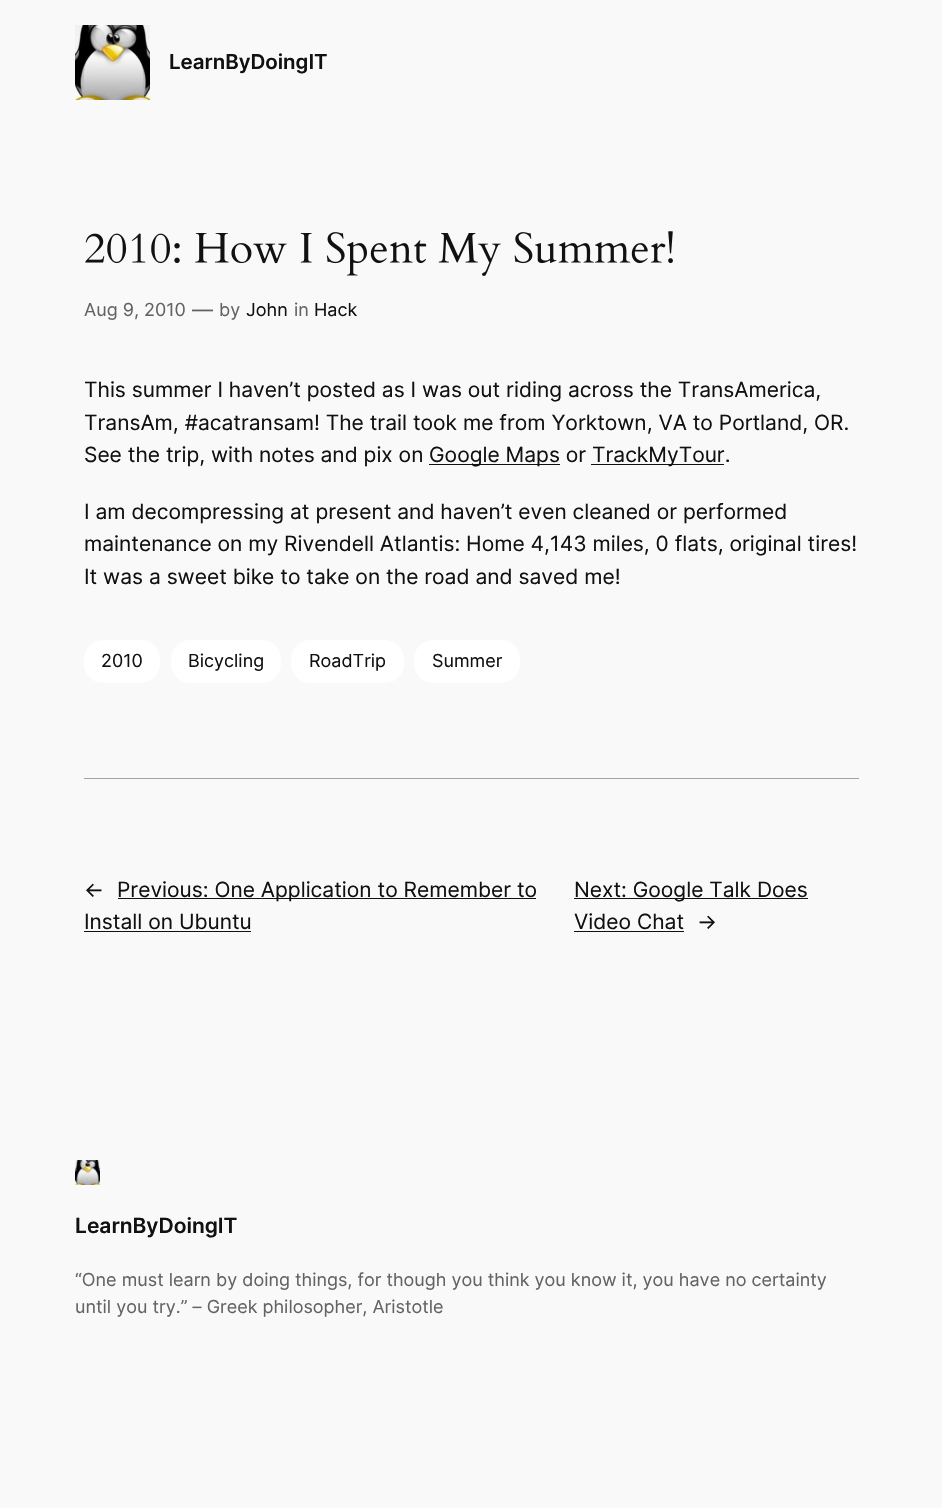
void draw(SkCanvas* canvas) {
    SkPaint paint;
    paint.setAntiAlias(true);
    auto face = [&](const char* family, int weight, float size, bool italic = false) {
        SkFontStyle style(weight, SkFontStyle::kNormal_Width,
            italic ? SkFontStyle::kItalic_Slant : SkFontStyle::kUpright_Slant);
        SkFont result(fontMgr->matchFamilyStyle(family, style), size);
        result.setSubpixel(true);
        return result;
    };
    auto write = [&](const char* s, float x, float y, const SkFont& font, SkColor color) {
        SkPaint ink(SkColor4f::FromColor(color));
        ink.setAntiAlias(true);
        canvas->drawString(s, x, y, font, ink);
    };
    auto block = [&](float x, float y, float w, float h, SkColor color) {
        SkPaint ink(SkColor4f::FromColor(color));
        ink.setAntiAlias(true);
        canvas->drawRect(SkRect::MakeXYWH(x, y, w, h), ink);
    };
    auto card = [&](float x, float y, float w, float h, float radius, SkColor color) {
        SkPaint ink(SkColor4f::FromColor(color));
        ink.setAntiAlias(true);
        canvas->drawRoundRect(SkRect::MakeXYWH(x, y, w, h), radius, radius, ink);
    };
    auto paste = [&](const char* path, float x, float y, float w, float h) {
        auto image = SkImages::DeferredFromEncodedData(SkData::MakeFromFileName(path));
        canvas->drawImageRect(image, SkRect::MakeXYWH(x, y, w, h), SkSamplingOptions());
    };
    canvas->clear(SkColorSetRGB(249, 249, 249));
    paste("pic1.png", 75, 25, 75, 75);
    auto kFont1 = face("Inter", 600, 20.5f);
    write("LearnByDoingIT", 169, 69, kFont1, SkColorSetRGB(17, 17, 17));
    paste("pic2.png", 85, 231, 588, 45);
    auto kFont2 = face("Inter", 400, 18);
    write("Aug 9, 2010", 84, 316, kFont2, SkColorSetRGB(99, 99, 99));
    auto kFont3 = face("Inter", 400, 21);
    write("—", 192, 317, kFont3, SkColorSetRGB(99, 99, 99));
    write("by", 219, 316, kFont2, SkColorSetRGB(99, 99, 99));
    write("John", 246, 316, kFont2, SkColorSetRGB(17, 17, 17));
    write("in", 294, 316, kFont2, SkColorSetRGB(99, 99, 99));
    write("Hack", 314, 316, kFont2, SkColorSetRGB(17, 17, 17));
    write("This summer I haven’t posted as I was out riding across the TransAmerica,", 84, 397, kFont3, SkColorSetRGB(17, 17, 17));
    write("TransAm, #acatransam! The trail took me from Yorktown, VA to Portland, OR.", 84, 430, kFont3, SkColorSetRGB(17, 17, 17));
    write("See the trip, with notes and pix on", 84, 462, kFont3, SkColorSetRGB(17, 17, 17));
    block(429, 464, 131, 1, SkColorSetRGB(17, 17, 17));
    write("Google Maps or", 429, 462, kFont3, SkColorSetRGB(17, 17, 17));
    block(591, 464, 133, 1, SkColorSetRGB(17, 17, 17));
    write("TrackMyTour.", 592, 462, kFont3, SkColorSetRGB(17, 17, 17));
    write("I am decompressing at present and haven’t even cleaned or performed", 84, 519, kFont3, SkColorSetRGB(17, 17, 17));
    write("maintenance on my Rivendell Atlantis: Home 4,143 miles, 0 flats, original tires!", 84, 551, kFont3, SkColorSetRGB(17, 17, 17));
    write("It was a sweet bike to take on the road and saved me!", 84, 584, kFont3, SkColorSetRGB(17, 17, 17));
    card(84, 640, 76, 43, 19, SK_ColorWHITE);
    write("2010", 101, 667, kFont2, SkColorSetRGB(17, 17, 17));
    card(171, 640, 110, 43, 19, SK_ColorWHITE);
    write("Bicycling", 188, 667, kFont2, SkColorSetRGB(17, 17, 17));
    card(291, 640, 113, 43, 19, SK_ColorWHITE);
    write("RoadTrip", 309, 667, kFont2, SkColorSetRGB(17, 17, 17));
    card(414, 640, 106, 43, 19, SK_ColorWHITE);
    write("Summer", 432, 667, kFont2, SkColorSetRGB(17, 17, 17));
    block(84, 778, 775, 1, SkColorSetRGB(164, 164, 164));
    write("←", 84, 897, kFont3, SkColorSetRGB(17, 17, 17));
    block(118, 898, 418, 1, SkColorSetRGB(17, 17, 17));
    write("Previous: One Application to Remember to", 117, 897, kFont3, SkColorSetRGB(17, 17, 17));
    write("Install on Ubuntu", 84, 929, kFont3, SkColorSetRGB(17, 17, 17));
    block(84, 931, 167, 1, SkColorSetRGB(17, 17, 17));
    block(574, 898, 234, 1, SkColorSetRGB(17, 17, 17));
    write("Next: Google Talk Does", 574, 897, kFont3, SkColorSetRGB(17, 17, 17));
    write("Video Chat", 574, 929, kFont3, SkColorSetRGB(17, 17, 17));
    block(574, 931, 110, 1, SkColorSetRGB(17, 17, 17));
    write("→", 697, 929, kFont3, SkColorSetRGB(17, 17, 17));
    paste("pic3.png", 75, 1160, 25, 25);
    auto kFont4 = face("Inter", 600, 21);
    write("LearnByDoingIT", 75, 1233, kFont4, SkColorSetRGB(17, 17, 17));
    write("“One must learn by doing things, for though you think you know it, you have no certainty", 75, 1286, kFont2, SkColorSetRGB(99, 99, 99));
    write("until you try.” – Greek philosopher, Aristotle", 75, 1313, kFont2, SkColorSetRGB(99, 99, 99));
}
